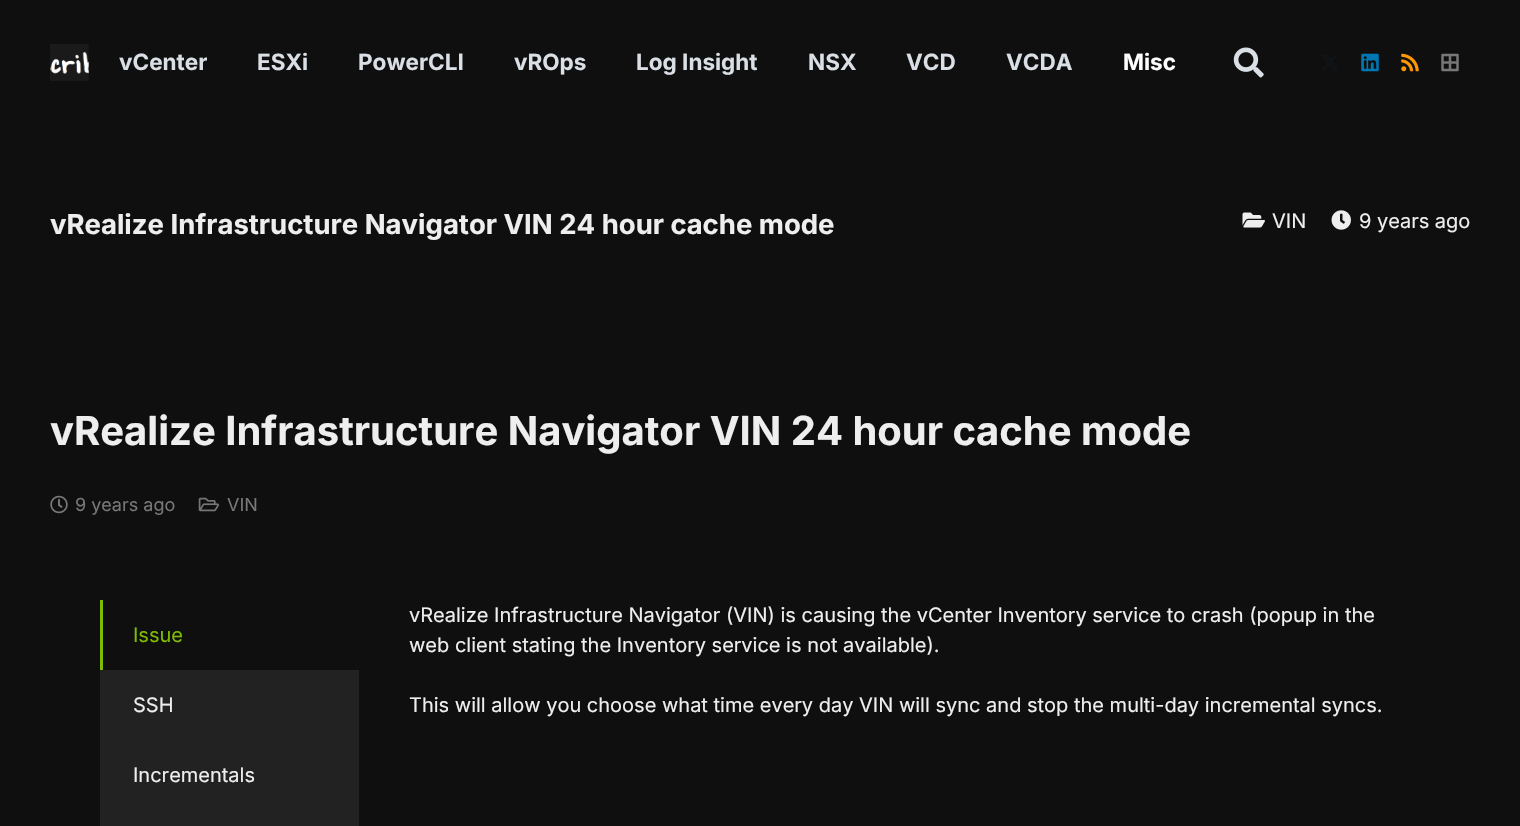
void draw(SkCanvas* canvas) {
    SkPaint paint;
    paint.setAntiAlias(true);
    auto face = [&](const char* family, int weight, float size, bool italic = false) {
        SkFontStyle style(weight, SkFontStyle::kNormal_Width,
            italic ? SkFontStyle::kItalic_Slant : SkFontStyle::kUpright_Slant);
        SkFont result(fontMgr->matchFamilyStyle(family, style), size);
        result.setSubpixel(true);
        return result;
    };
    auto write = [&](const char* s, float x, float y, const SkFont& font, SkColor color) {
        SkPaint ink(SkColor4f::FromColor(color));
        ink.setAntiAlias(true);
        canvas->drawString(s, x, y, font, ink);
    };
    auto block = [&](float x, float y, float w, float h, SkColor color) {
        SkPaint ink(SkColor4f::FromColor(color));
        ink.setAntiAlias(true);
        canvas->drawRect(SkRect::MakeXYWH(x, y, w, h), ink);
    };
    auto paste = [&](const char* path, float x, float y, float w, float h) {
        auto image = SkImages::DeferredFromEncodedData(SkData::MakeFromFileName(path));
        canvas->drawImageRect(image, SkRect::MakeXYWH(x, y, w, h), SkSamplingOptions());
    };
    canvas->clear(SkColorSetRGB(15, 15, 15));
    paste("pic1.png", 50, 44, 39, 37);
    auto kFont1 = face("Inter", 700, 22.5f);
    write("vCenter", 119, 70, kFont1, SkColorSetRGB(218, 223, 230));
    write("ESXi", 257, 70, kFont1, SkColorSetRGB(218, 223, 230));
    write("PowerCLI", 358, 70, kFont1, SkColorSetRGB(218, 223, 230));
    write("vROps", 514, 70, kFont1, SkColorSetRGB(218, 223, 230));
    write("Log Insight", 636, 70, kFont1, SkColorSetRGB(218, 223, 230));
    write("NSX", 808, 70, kFont1, SkColorSetRGB(218, 223, 230));
    write("VCD", 906, 70, kFont1, SkColorSetRGB(218, 223, 230));
    write("VCDA", 1006, 70, kFont1, SkColorSetRGB(218, 223, 230));
    write("Misc", 1123, 70, kFont1, SK_ColorWHITE);
    paste("pic2.png", 1233, 47, 31, 31);
    paste("pic3.png", 1321, 54, 18, 17);
    paste("pic4.png", 1361, 53, 18, 19);
    paste("pic5.png", 1401, 53, 18, 19);
    paste("pic6.png", 1441, 53, 18, 19);
    auto kFont2 = face("Inter", 700, 27.5f);
    write("vRealize Infrastructure Navigator VIN 24 hour cache mode", 50, 234, kFont2, SkColorSetRGB(238, 238, 238));
    paste("pic7.png", 1242, 212, 23, 16);
    auto kFont3 = face("Inter", 400, 20);
    write("VIN", 1272, 228, kFont3, SkColorSetRGB(238, 238, 238));
    paste("pic8.png", 1331, 210, 20, 20);
    write("9 years ago", 1359, 228, kFont3, SkColorSetRGB(238, 238, 238));
    auto kFont4 = face("Inter", 700, 40);
    write("vRealize Infrastructure Navigator VIN 24 hour cache mode", 50, 445, kFont4, SkColorSetRGB(238, 238, 238));
    paste("pic9.png", 50, 495, 18, 19);
    auto kFont5 = face("Inter", 400, 18);
    write("9 years ago", 75, 511, kFont5, SkColorSetRGB(119, 119, 119));
    paste("pic10.png", 198, 497, 21, 15);
    write("VIN", 227, 511, kFont5, SkColorSetRGB(119, 119, 119));
    block(100, 670, 259, 156, SkColorSetRGB(34, 34, 34));
    block(100, 600, 3, 70, SkColorSetRGB(127, 187, 0));
    write("Issue", 133, 642, kFont3, SkColorSetRGB(127, 187, 0));
    write("SSH", 133, 712, kFont3, SkColorSetRGB(238, 238, 238));
    write("Incrementals", 133, 782, kFont3, SkColorSetRGB(238, 238, 238));
    write("vRealize Infrastructure Navigator (VIN) is causing the vCenter Inventory service to crash (popup in the", 409, 622, kFont3, SkColorSetRGB(238, 238, 238));
    write("web client stating the Inventory service is not available).", 409, 652, kFont3, SkColorSetRGB(238, 238, 238));
    write("This will allow you choose what time every day VIN will sync and stop the multi-day incremental syncs.", 409, 712, kFont3, SkColorSetRGB(238, 238, 238));
}
